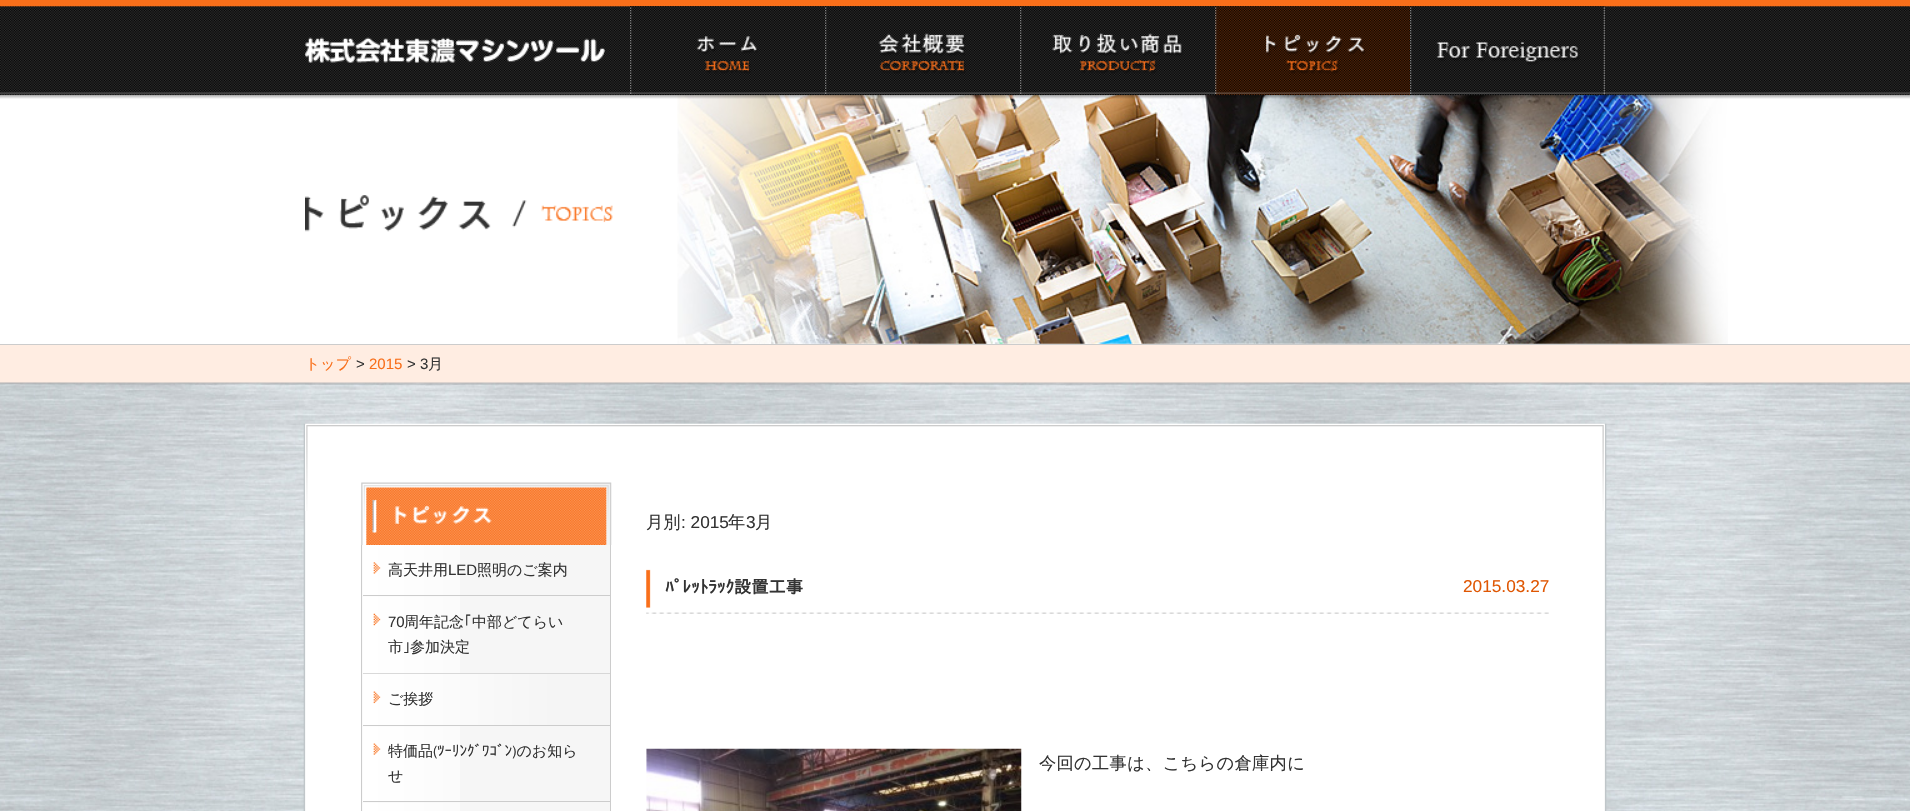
void draw(SkCanvas* canvas) {
    SkPaint paint;
    paint.setAntiAlias(true);
    auto face = [&](const char* family, int weight, float size, bool italic = false) {
        SkFontStyle style(weight, SkFontStyle::kNormal_Width,
            italic ? SkFontStyle::kItalic_Slant : SkFontStyle::kUpright_Slant);
        SkFont result(fontMgr->matchFamilyStyle(family, style), size);
        result.setSubpixel(true);
        return result;
    };
    auto write = [&](const char* s, float x, float y, const SkFont& font, SkColor color) {
        SkPaint ink(SkColor4f::FromColor(color));
        ink.setAntiAlias(true);
        canvas->drawString(s, x, y, font, ink);
    };
    auto writeSpaced = [&](const char* s, float x, float y, const SkFont& font, const SkPaint& ink, float letter, float word) {
        std::vector<SkGlyphID> glyphs(font.countText(s, strlen(s), SkTextEncoding::kUTF8));
        std::vector<float> xs(glyphs.size());
        font.textToGlyphs(s, strlen(s), SkTextEncoding::kUTF8, glyphs);
        font.getXPos(glyphs, xs, x);
        float extra = 0;
        for (size_t i = 0; i < glyphs.size(); i++) {
            xs[i] += extra;
            extra += letter + word * (glyphs[i] == font.unicharToGlyph(' '));
        }
        canvas->drawTextBlob(SkTextBlob::MakeFromPosHGlyphs(glyphs, xs, y, font), 0, 0, ink);
    };
    auto block = [&](float x, float y, float w, float h, SkColor color) {
        SkPaint ink(SkColor4f::FromColor(color));
        ink.setAntiAlias(true);
        canvas->drawRect(SkRect::MakeXYWH(x, y, w, h), ink);
    };
    auto paste = [&](const char* path, float x, float y, float w, float h) {
        auto image = SkImages::DeferredFromEncodedData(SkData::MakeFromFileName(path));
        canvas->drawImageRect(image, SkRect::MakeXYWH(x, y, w, h), SkSamplingOptions());
    };
    canvas->clear(SK_ColorWHITE);
    paste("pic1.png", 0, 382, 1910, 429);
    paste("pic12.png", 677, 94, 1051, 250);
    paste("pic2.png", 0, 0, 1910, 99);
    paste("pic3.png", 305, 37, 300, 26);
    paste("pic4.png", 630, 6, 195, 1);
    paste("pic5.png", 630, 6, 195, 89);
    paste("pic6.png", 825, 6, 195, 1);
    paste("pic7.png", 825, 6, 195, 89);
    paste("pic4.png", 1020, 6, 195, 1);
    paste("pic8.png", 1020, 6, 195, 89);
    paste("pic9.png", 1215, 6, 195, 89);
    paste("pic10.png", 1215, 6, 195, 1);
    paste("pic4.png", 1410, 6, 195, 1);
    paste("pic11.png", 1410, 6, 195, 89);
    block(0, 344, 1910, 1, SkColorSetRGB(204, 204, 204));
    paste("pic13.png", 305, 195, 308, 37);
    paste("pic14.png", 0, 345, 1910, 40);
    auto kFont1 = face("WenQuanYi Zen Hei", 500, 15);
    write("トップ", 305, 369, kFont1, SkColorSetRGB(249, 111, 26));
    auto kFont2 = face("Liberation Sans", 400, 15);
    write(">", 356, 369, kFont2, SkColorSetRGB(51, 51, 51));
    write("2015", 369, 369, kFont2, SkColorSetRGB(249, 111, 26));
    write("> 3", 407, 369, kFont2, SkColorSetRGB(51, 51, 51));
    write("月", 428, 369, kFont1, SkColorSetRGB(51, 51, 51));
    paste("pic15.png", 303, 423, 1304, 388);
    paste("pic16.png", 305, 425, 1300, 86);
    paste("pic17.png", 361, 482, 251, 63);
    block(362, 545, 248, 266, SkColorSetRGB(246, 246, 246));
    block(610, 545, 1, 266, SkColorSetRGB(204, 204, 204));
    block(361, 545, 1, 266, SkColorSetRGB(204, 204, 204));
    paste("pic18.png", 362, 545, 98, 51);
    block(363, 595, 247, 1, SkColorSetRGB(204, 204, 204));
    write("高天井用", 388, 575, kFont1, SkColorSetRGB(51, 51, 51));
    write("LED", 448, 575, kFont2, SkColorSetRGB(51, 51, 51));
    write("照明のご案内", 477, 575, kFont1, SkColorSetRGB(51, 51, 51));
    paste("pic19.png", 362, 596, 98, 78);
    block(363, 673, 247, 1, SkColorSetRGB(204, 204, 204));
    write("70", 388, 627, kFont2, SkColorSetRGB(51, 51, 51));
    write("周年記念", 404, 627, kFont1, SkColorSetRGB(51, 51, 51));
    auto kFont3 = face("IPAPGothic", 400, 15);
    write("｢", 464, 627, kFont3, SkColorSetRGB(51, 51, 51));
    write("中部どてらい", 472, 627, kFont1, SkColorSetRGB(51, 51, 51));
    write("市", 388, 652, kFont1, SkColorSetRGB(51, 51, 51));
    write("｣", 403, 652, kFont3, SkColorSetRGB(51, 51, 51));
    write("参加決定", 410, 652, kFont1, SkColorSetRGB(51, 51, 51));
    paste("pic20.png", 362, 673, 248, 53);
    block(363, 725, 247, 1, SkColorSetRGB(204, 204, 204));
    write("ご挨拶", 388, 704, kFont1, SkColorSetRGB(51, 51, 51));
    paste("pic21.png", 362, 726, 98, 77);
    block(363, 801, 247, 1, SkColorSetRGB(204, 204, 204));
    write("特価品(", 388, 756, kFont1, SkColorSetRGB(51, 51, 51));
    write("ﾂｰﾘﾝｸﾞﾜｺﾞﾝ", 437, 756, kFont3, SkColorSetRGB(51, 51, 51));
    write(")のお知ら", 512, 756, kFont1, SkColorSetRGB(51, 51, 51));
    write("せ", 388, 781, kFont1, SkColorSetRGB(51, 51, 51));
    paste("pic22.png", 362, 803, 98, 8);
    auto kFont4 = face("WenQuanYi Zen Hei", 500, 17.25f);
    write("月別", 646, 528, kFont4, SkColorSetRGB(51, 51, 51));
    auto kFont5 = face("Liberation Sans", 400, 17.25f);
    write(": 2015", 681, 528, kFont5, SkColorSetRGB(51, 51, 51));
    write("年", 728, 528, kFont4, SkColorSetRGB(51, 51, 51));
    write("3", 746, 528, kFont5, SkColorSetRGB(51, 51, 51));
    write("月", 755, 528, kFont4, SkColorSetRGB(51, 51, 51));
    paste("pic23.png", 646, 569, 903, 45);
    auto kFont6 = face("IPAPGothic", 700, 17.25f);
    write("ﾊﾟﾚｯﾄﾗｯｸ設置工事", 665, 593, kFont6, SkColorSetRGB(51, 51, 51));
    write("2015.03.27", 1463, 592, kFont5, SkColorSetRGB(223, 86, 2));
    paste("pic24.png", 646, 748, 376, 63);
    paint.setColor(SkColorSetRGB(51, 51, 51));
    writeSpaced("今回の工事は、こちらの倉庫内に", 1039, 769, kFont4, paint, 0.3f, 0);
}
